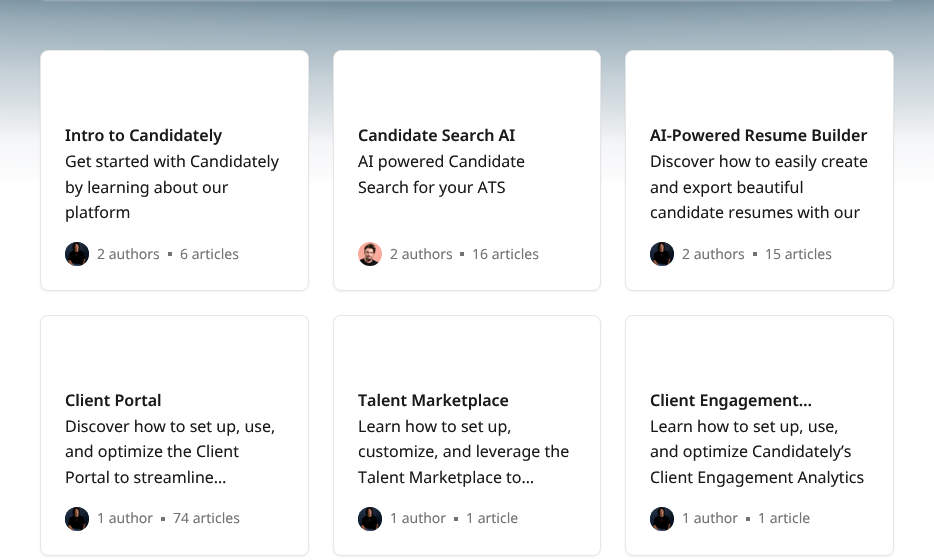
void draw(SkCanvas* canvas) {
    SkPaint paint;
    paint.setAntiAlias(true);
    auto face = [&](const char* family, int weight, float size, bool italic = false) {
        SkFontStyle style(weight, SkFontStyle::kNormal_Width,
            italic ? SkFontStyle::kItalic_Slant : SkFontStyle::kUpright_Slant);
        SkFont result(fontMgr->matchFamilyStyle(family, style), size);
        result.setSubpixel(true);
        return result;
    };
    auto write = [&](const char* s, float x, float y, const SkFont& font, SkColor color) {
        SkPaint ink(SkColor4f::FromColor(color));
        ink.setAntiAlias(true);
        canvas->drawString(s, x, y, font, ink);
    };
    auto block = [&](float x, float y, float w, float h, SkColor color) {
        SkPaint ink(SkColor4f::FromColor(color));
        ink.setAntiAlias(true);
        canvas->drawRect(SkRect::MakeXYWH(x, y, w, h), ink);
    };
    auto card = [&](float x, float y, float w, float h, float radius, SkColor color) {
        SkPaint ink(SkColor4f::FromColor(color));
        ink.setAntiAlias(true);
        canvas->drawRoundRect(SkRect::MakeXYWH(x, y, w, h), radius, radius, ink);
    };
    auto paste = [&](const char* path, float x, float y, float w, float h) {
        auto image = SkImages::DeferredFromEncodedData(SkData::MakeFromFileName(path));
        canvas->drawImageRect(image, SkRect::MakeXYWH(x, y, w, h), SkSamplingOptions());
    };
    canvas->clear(SK_ColorWHITE);
    {
        const SkColor colors[] = {SkColorSetRGB(11, 57, 84), SkColorSetRGB(13, 59, 85), SkColorSetRGB(20, 64, 90), SkColorSetRGB(28, 71, 96), SkColorSetRGB(40, 81, 105), SkColorSetRGB(55, 93, 115), SkColorSetRGB(72, 107, 127), SkColorSetRGB(92, 122, 140), SkColorSetRGB(111, 138, 154), SkColorSetRGB(132, 155, 168), SkColorSetRGB(153, 173, 184), SkColorSetRGB(174, 190, 199), SkColorSetRGB(196, 207, 214), SkColorSetRGB(217, 224, 228), SkColorSetRGB(245, 246, 248), SK_ColorWHITE};
        const float stops[] = {0, 0.12f, 0.21f, 0.29f, 0.35f, 0.4f, 0.44f, 0.48f, 0.52f, 0.55f, 0.59f, 0.65f, 0.71f, 0.79f, 0.88f, 1};
        SkMatrix m = SkMatrix::Translate(467, -211).preScale(3114, 405);
        paint.setShader(SkGradientShader::MakeRadial({0, 0}, 1, colors, stops, 16, SkTileMode::kClamp, 0, &m));
        paint.setAlpha(255);
    }
    canvas->drawRect(SkRect::MakeXYWH(0, 0, 934, 182), paint);
    card(40, -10, 854, 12, 10, SkColorSetARGB(51, 255, 255, 255));
    paint.setStyle(SkPaint::kStroke_Style);
    paint.setStrokeWidth(1);
    paint.setShader(nullptr);
    paint.setColor(SkColorSetARGB(20, 0, 0, 0));
    canvas->drawRoundRect(SkRect::MakeXYWH(40.5f, -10.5f, 853, 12), 9.5f, 9.5f, paint);
    paint.setStyle(SkPaint::kFill_Style);
    paint.setColor(SkColorSetARGB(13, 0, 0, 0));
    paint.setMaskFilter(SkMaskFilter::MakeBlur(kNormal_SkBlurStyle, 1));
    canvas->drawRoundRect(SkRect::MakeXYWH(40, 51, 269, 241), 8, 8, paint);
    paint.setMaskFilter(nullptr);
    paint.setColor(SK_ColorWHITE);
    canvas->drawRoundRect(SkRect::MakeXYWH(40.5f, 50.5f, 268, 240), 7.5f, 7.5f, paint);
    paint.setStyle(SkPaint::kStroke_Style);
    paint.setColor(SkColorSetRGB(230, 230, 230));
    canvas->drawRoundRect(SkRect::MakeXYWH(40.5f, 50.5f, 268, 240), 7.5f, 7.5f, paint);
    auto kFont1 = face("Noto Sans", 600, 16);
    write("Intro to Candidately", 65, 141, kFont1, SkColorSetRGB(26, 26, 26));
    auto kFont2 = face("Noto Sans", 400, 16);
    write("Get started with Candidately", 65, 167, kFont2, SkColorSetRGB(26, 26, 26));
    write("by learning about our", 65, 193, kFont2, SkColorSetRGB(26, 26, 26));
    write("platform", 65, 218, kFont2, SkColorSetRGB(26, 26, 26));
    paint.setStyle(SkPaint::kFill_Style);
    paint.setColor(SkColorSetRGB(11, 58, 86));
    canvas->drawCircle(77, 254, 12, paint);
    paste("pic1.png", 65, 242, 24, 24);
    auto kFont3 = face("Noto Sans", 400, 14);
    write("2 authors", 97, 259, kFont3, SkColorSetRGB(115, 115, 115));
    block(168, 252, 4, 4, SkColorSetRGB(115, 115, 115));
    write("6 articles", 180, 259, kFont3, SkColorSetRGB(115, 115, 115));
    paint.setColor(SkColorSetARGB(13, 0, 0, 0));
    paint.setMaskFilter(SkMaskFilter::MakeBlur(kNormal_SkBlurStyle, 1));
    canvas->drawRoundRect(SkRect::MakeXYWH(333, 51, 268, 241), 8, 8, paint);
    paint.setMaskFilter(nullptr);
    paint.setColor(SK_ColorWHITE);
    canvas->drawRoundRect(SkRect::MakeXYWH(333.5f, 50.5f, 267, 240), 7.5f, 7.5f, paint);
    paint.setStyle(SkPaint::kStroke_Style);
    paint.setColor(SkColorSetRGB(230, 230, 230));
    canvas->drawRoundRect(SkRect::MakeXYWH(333.5f, 50.5f, 267, 240), 7.5f, 7.5f, paint);
    write("Candidate Search AI", 358, 141, kFont1, SkColorSetRGB(26, 26, 26));
    write("AI powered Candidate", 358, 167, kFont2, SkColorSetRGB(26, 26, 26));
    write("Search for your ATS", 358, 193, kFont2, SkColorSetRGB(26, 26, 26));
    paste("pic2.png", 358, 242, 24, 24);
    write("2 authors", 390, 259, kFont3, SkColorSetRGB(115, 115, 115));
    block(460, 252, 4, 4, SkColorSetRGB(115, 115, 115));
    write("16 articles", 472, 259, kFont3, SkColorSetRGB(115, 115, 115));
    paint.setStyle(SkPaint::kFill_Style);
    paint.setColor(SkColorSetARGB(13, 0, 0, 0));
    paint.setMaskFilter(SkMaskFilter::MakeBlur(kNormal_SkBlurStyle, 1));
    canvas->drawRoundRect(SkRect::MakeXYWH(625, 51, 269, 241), 8, 8, paint);
    paint.setMaskFilter(nullptr);
    paint.setColor(SK_ColorWHITE);
    canvas->drawRoundRect(SkRect::MakeXYWH(625.5f, 50.5f, 268, 240), 7.5f, 7.5f, paint);
    paint.setStyle(SkPaint::kStroke_Style);
    paint.setColor(SkColorSetRGB(230, 230, 230));
    canvas->drawRoundRect(SkRect::MakeXYWH(625.5f, 50.5f, 268, 240), 7.5f, 7.5f, paint);
    write("AI-Powered Resume Builder", 650, 141, kFont1, SkColorSetRGB(26, 26, 26));
    write("Discover how to easily create", 650, 167, kFont2, SkColorSetRGB(26, 26, 26));
    write("and export beautiful", 650, 193, kFont2, SkColorSetRGB(26, 26, 26));
    write("candidate resumes with our", 650, 218, kFont2, SkColorSetRGB(26, 26, 26));
    paint.setStyle(SkPaint::kFill_Style);
    paint.setColor(SkColorSetRGB(11, 58, 86));
    canvas->drawCircle(662, 254, 12, paint);
    paste("pic3.png", 650, 242, 24, 24);
    write("2 authors", 682, 259, kFont3, SkColorSetRGB(115, 115, 115));
    block(753, 252, 4, 4, SkColorSetRGB(115, 115, 115));
    write("15 articles", 765, 259, kFont3, SkColorSetRGB(115, 115, 115));
    paint.setColor(SkColorSetARGB(13, 0, 0, 0));
    paint.setMaskFilter(SkMaskFilter::MakeBlur(kNormal_SkBlurStyle, 1));
    canvas->drawRoundRect(SkRect::MakeXYWH(40, 316, 269, 241), 8, 8, paint);
    paint.setMaskFilter(nullptr);
    paint.setColor(SK_ColorWHITE);
    canvas->drawRoundRect(SkRect::MakeXYWH(40.5f, 315.5f, 268, 240), 7.5f, 7.5f, paint);
    paint.setStyle(SkPaint::kStroke_Style);
    paint.setColor(SkColorSetRGB(230, 230, 230));
    canvas->drawRoundRect(SkRect::MakeXYWH(40.5f, 315.5f, 268, 240), 7.5f, 7.5f, paint);
    write("Client Portal", 65, 406, kFont1, SkColorSetRGB(26, 26, 26));
    write("Discover how to set up, use,", 65, 432, kFont2, SkColorSetRGB(26, 26, 26));
    write("and optimize the Client", 65, 457, kFont2, SkColorSetRGB(26, 26, 26));
    write("Portal to streamline…", 65, 483, kFont2, SkColorSetRGB(26, 26, 26));
    paint.setStyle(SkPaint::kFill_Style);
    paint.setColor(SkColorSetRGB(11, 58, 86));
    canvas->drawCircle(77, 519, 12, paint);
    paste("pic1.png", 65, 507, 24, 24);
    write("1 author", 97, 523, kFont3, SkColorSetRGB(115, 115, 115));
    block(161, 517, 4, 4, SkColorSetRGB(115, 115, 115));
    write("74 articles", 173, 523, kFont3, SkColorSetRGB(115, 115, 115));
    paint.setColor(SkColorSetARGB(13, 0, 0, 0));
    paint.setMaskFilter(SkMaskFilter::MakeBlur(kNormal_SkBlurStyle, 1));
    canvas->drawRoundRect(SkRect::MakeXYWH(333, 316, 268, 241), 8, 8, paint);
    paint.setMaskFilter(nullptr);
    paint.setColor(SK_ColorWHITE);
    canvas->drawRoundRect(SkRect::MakeXYWH(333.5f, 315.5f, 267, 240), 7.5f, 7.5f, paint);
    paint.setStyle(SkPaint::kStroke_Style);
    paint.setColor(SkColorSetRGB(230, 230, 230));
    canvas->drawRoundRect(SkRect::MakeXYWH(333.5f, 315.5f, 267, 240), 7.5f, 7.5f, paint);
    write("Talent Marketplace", 358, 406, kFont1, SkColorSetRGB(26, 26, 26));
    write("Learn how to set up,", 358, 432, kFont2, SkColorSetRGB(26, 26, 26));
    write("customize, and leverage the", 358, 457, kFont2, SkColorSetRGB(26, 26, 26));
    write("Talent Marketplace to…", 358, 483, kFont2, SkColorSetRGB(26, 26, 26));
    paint.setStyle(SkPaint::kFill_Style);
    paint.setColor(SkColorSetRGB(11, 58, 86));
    canvas->drawCircle(370, 519, 12, paint);
    paste("pic4.png", 358, 507, 24, 24);
    write("1 author", 390, 523, kFont3, SkColorSetRGB(115, 115, 115));
    block(454, 517, 4, 4, SkColorSetRGB(115, 115, 115));
    write("1 article", 466, 523, kFont3, SkColorSetRGB(115, 115, 115));
    paint.setColor(SkColorSetARGB(13, 0, 0, 0));
    paint.setMaskFilter(SkMaskFilter::MakeBlur(kNormal_SkBlurStyle, 1));
    canvas->drawRoundRect(SkRect::MakeXYWH(625, 316, 269, 241), 8, 8, paint);
    paint.setMaskFilter(nullptr);
    paint.setColor(SK_ColorWHITE);
    canvas->drawRoundRect(SkRect::MakeXYWH(625.5f, 315.5f, 268, 240), 7.5f, 7.5f, paint);
    paint.setStyle(SkPaint::kStroke_Style);
    paint.setColor(SkColorSetRGB(230, 230, 230));
    canvas->drawRoundRect(SkRect::MakeXYWH(625.5f, 315.5f, 268, 240), 7.5f, 7.5f, paint);
    write("Client Engagement…", 650, 406, kFont1, SkColorSetRGB(26, 26, 26));
    write("Learn how to set up, use,", 650, 432, kFont2, SkColorSetRGB(26, 26, 26));
    write("and optimize Candidately’s", 650, 457, kFont2, SkColorSetRGB(26, 26, 26));
    write("Client Engagement Analytics", 650, 483, kFont2, SkColorSetRGB(26, 26, 26));
    paint.setStyle(SkPaint::kFill_Style);
    paint.setColor(SkColorSetRGB(11, 58, 86));
    canvas->drawCircle(662, 519, 12, paint);
    paste("pic3.png", 650, 507, 24, 24);
    write("1 author", 682, 523, kFont3, SkColorSetRGB(115, 115, 115));
    block(746, 517, 4, 4, SkColorSetRGB(115, 115, 115));
    write("1 article", 758, 523, kFont3, SkColorSetRGB(115, 115, 115));
}
